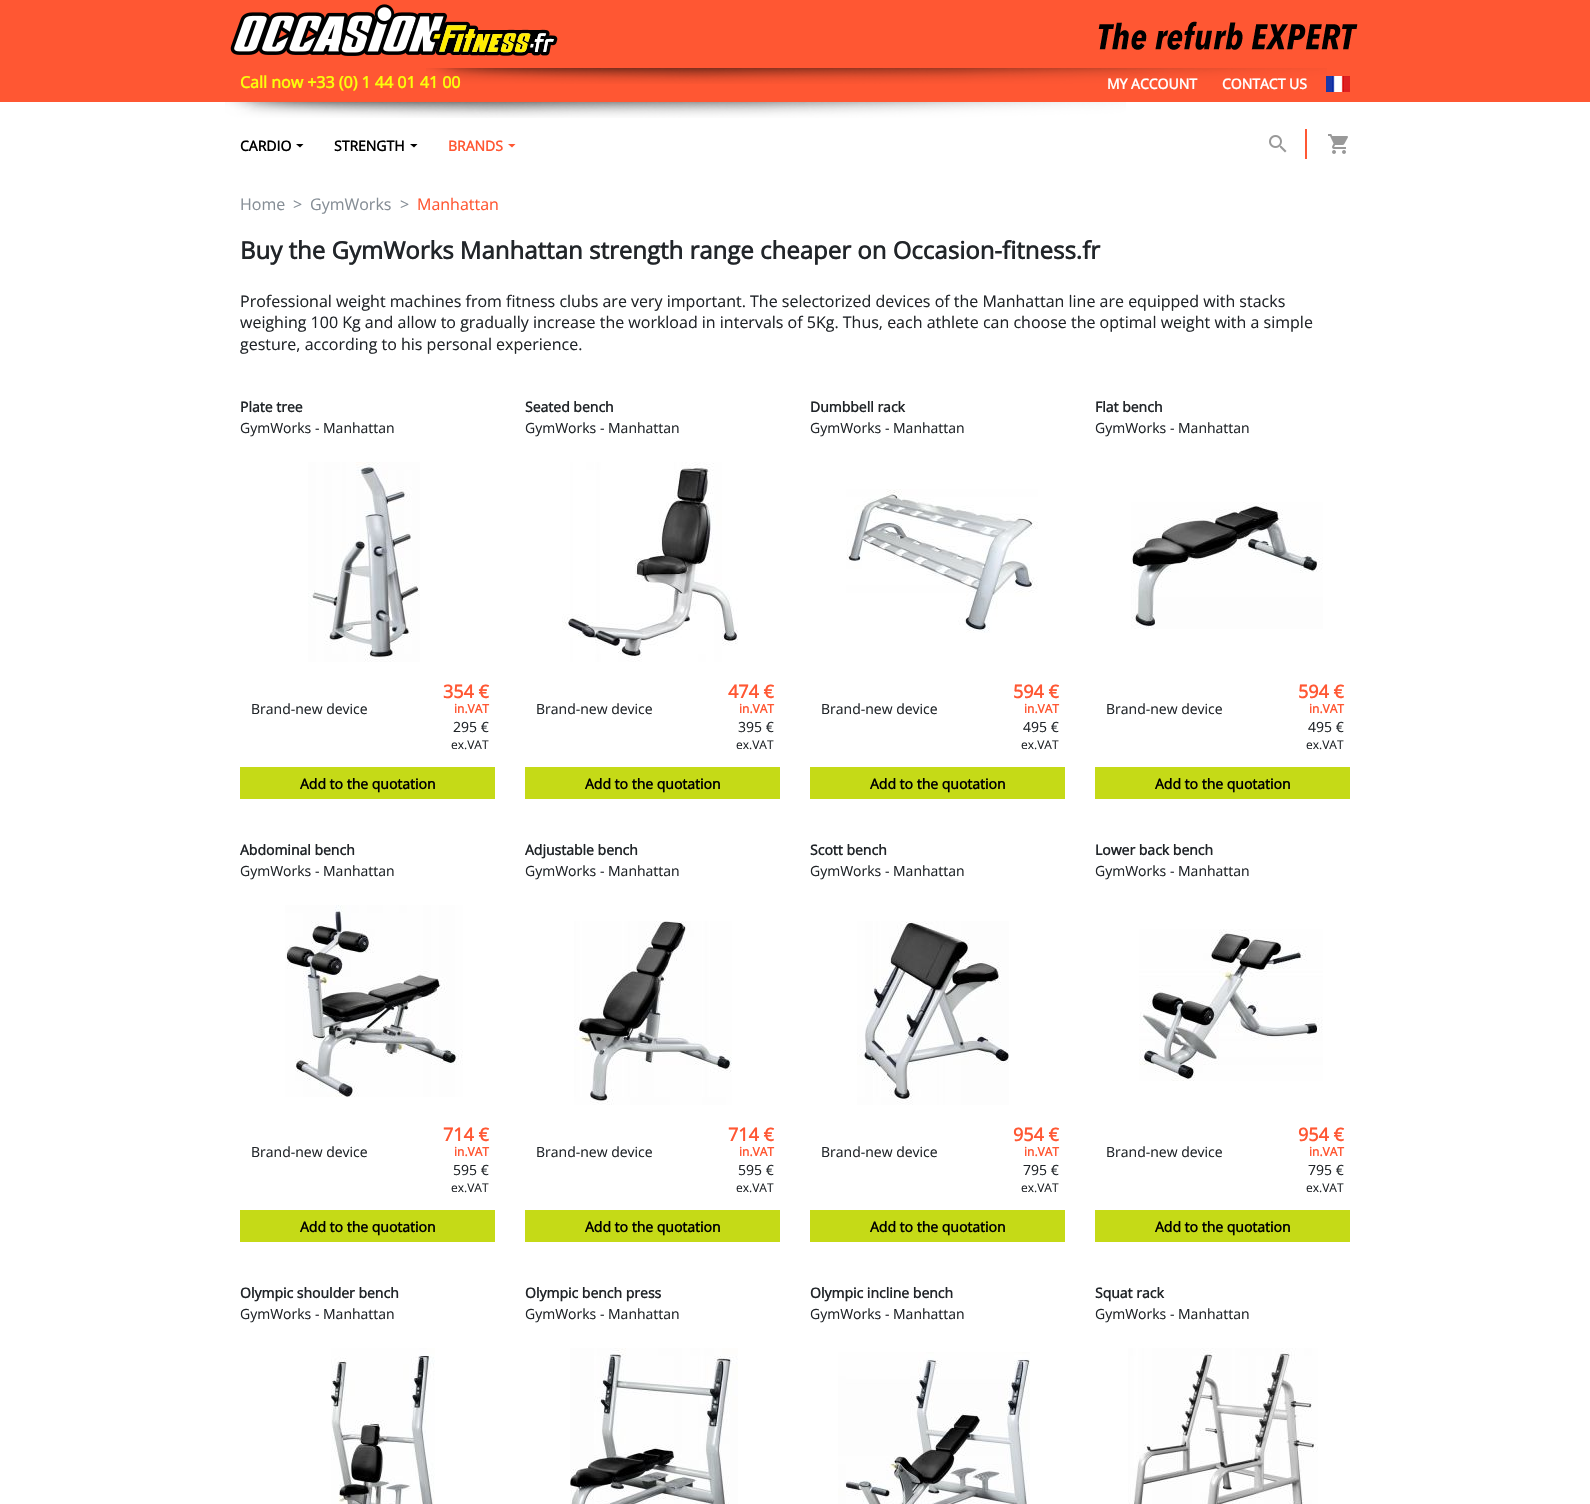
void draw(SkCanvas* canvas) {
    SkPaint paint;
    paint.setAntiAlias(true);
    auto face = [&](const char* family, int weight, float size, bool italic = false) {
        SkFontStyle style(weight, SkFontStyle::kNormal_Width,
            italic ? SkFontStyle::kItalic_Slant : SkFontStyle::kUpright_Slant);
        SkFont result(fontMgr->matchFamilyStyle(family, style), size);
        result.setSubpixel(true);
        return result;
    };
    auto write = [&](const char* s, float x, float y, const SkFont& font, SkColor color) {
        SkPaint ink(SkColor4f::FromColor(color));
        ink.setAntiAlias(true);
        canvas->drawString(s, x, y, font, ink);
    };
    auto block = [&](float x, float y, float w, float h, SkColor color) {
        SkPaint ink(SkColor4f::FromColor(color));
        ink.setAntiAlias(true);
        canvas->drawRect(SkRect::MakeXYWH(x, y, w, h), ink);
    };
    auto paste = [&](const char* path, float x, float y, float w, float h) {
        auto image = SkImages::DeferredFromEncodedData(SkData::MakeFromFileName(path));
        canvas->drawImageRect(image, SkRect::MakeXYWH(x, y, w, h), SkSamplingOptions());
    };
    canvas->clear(SK_ColorWHITE);
    block(0, 0, 1590, 102, SkColorSetRGB(255, 87, 51));
    paste("pic1.png", 230, 4, 328, 52);
    paste("pic2.png", 1098, 21, 260, 29);
    paste("pic3.png", 426, 68, 901, 16);
    auto kFont1 = face("Open Sans", 700, 16);
    write("Call now +33 (0) 1 44 01 41 00", 240, 88, kFont1, SkColorSetRGB(250, 254, 11));
    paste("pic4.png", 1326, 76, 24, 16);
    auto kFont2 = face("Open Sans", 700, 14);
    write("MY ACCOUNT", 1107, 89, kFont2, SK_ColorWHITE);
    write("CONTACT US", 1222, 89, kFont2, SK_ColorWHITE);
    write("CARDIO", 240, 151, kFont2, SK_ColorBLACK);
    paint.setColor(SK_ColorBLACK);
    canvas->drawPath(SkPathBuilder().moveTo(296, 144).lineTo(303.5f, 144).lineTo(300, 147.5f).close().detach(), paint);
    write("STRENGTH", 334, 151, kFont2, SK_ColorBLACK);
    canvas->drawPath(SkPathBuilder().moveTo(410, 144).lineTo(417.5f, 144).lineTo(414, 147.5f).close().detach(), paint);
    write("BRANDS", 448, 151, kFont2, SkColorSetRGB(255, 87, 51));
    paint.setColor(SkColorSetRGB(255, 87, 51));
    canvas->drawPath(SkPathBuilder().moveTo(508, 144).lineTo(515.5f, 144).lineTo(512, 147.5f).close().detach(), paint);
    block(1305, 129, 2, 30, SkColorSetRGB(255, 87, 51));
    paste("pic5.png", 1269, 135, 18, 18);
    paste("pic6.png", 1328, 134, 20, 20);
    paste("pic7.png", 225, 102, 901, 16);
    auto kFont3 = face("Open Sans", 400, 16);
    write("Home", 240, 210, kFont3, SkColorSetRGB(134, 142, 150));
    write(">", 293, 210, kFont3, SkColorSetRGB(134, 142, 150));
    write("GymWorks", 310, 210, kFont3, SkColorSetRGB(134, 142, 150));
    write(">", 400, 210, kFont3, SkColorSetRGB(134, 142, 150));
    write("Manhattan", 417, 210, kFont3, SkColorSetRGB(255, 87, 51));
    auto kFont4 = face("Open Sans", 700, 24);
    write("Buy the GymWorks Manhattan strength range cheaper on Occasion-fitness.fr", 240, 259, kFont4, SkColorSetRGB(33, 37, 41));
    write("Professional weight machines from fitness clubs are very important. The selectorized devices of the Manhattan line are equipped with stacks", 240, 307, kFont3, SkColorSetRGB(33, 37, 41));
    write("weighing 100 Kg and allow to gradually increase the workload in intervals of 5Kg. Thus, each athlete can choose the optimal weight with a simple", 240, 328, kFont3, SkColorSetRGB(33, 37, 41));
    write("gesture, according to his personal experience.", 240, 350, kFont3, SkColorSetRGB(33, 37, 41));
    write("Plate tree", 240, 412, kFont2, SkColorSetRGB(33, 37, 41));
    auto kFont5 = face("Open Sans", 400, 14);
    write("GymWorks - Manhattan", 240, 433, kFont5, SkColorSetRGB(33, 37, 41));
    paste("pic8.png", 308, 462, 112, 200);
    write("Brand-new device", 251, 714, kFont5, SkColorSetRGB(33, 37, 41));
    auto kFont6 = face("Open Sans", 700, 18);
    write("354 €", 443, 698, kFont6, SkColorSetRGB(255, 87, 51));
    auto kFont7 = face("Open Sans", 700, 12);
    write("in.VAT", 454, 713, kFont7, SkColorSetRGB(255, 87, 51));
    write("295 €", 453, 732, kFont5, SkColorSetRGB(33, 37, 41));
    auto kFont8 = face("Open Sans", 400, 12);
    write("ex.VAT", 451, 749, kFont8, SkColorSetRGB(33, 37, 41));
    block(240, 767, 255, 32, SkColorSetRGB(197, 218, 23));
    write("Add to the quotation", 300, 789, kFont2, SK_ColorBLACK);
    write("Seated bench", 525, 412, kFont2, SkColorSetRGB(33, 37, 41));
    write("GymWorks - Manhattan", 525, 433, kFont5, SkColorSetRGB(33, 37, 41));
    paste("pic9.png", 562, 462, 176, 200);
    write("Brand-new device", 536, 714, kFont5, SkColorSetRGB(33, 37, 41));
    write("474 €", 728, 698, kFont6, SkColorSetRGB(255, 87, 51));
    write("in.VAT", 739, 713, kFont7, SkColorSetRGB(255, 87, 51));
    write("395 €", 738, 732, kFont5, SkColorSetRGB(33, 37, 41));
    write("ex.VAT", 736, 749, kFont8, SkColorSetRGB(33, 37, 41));
    block(525, 767, 255, 32, SkColorSetRGB(197, 218, 23));
    write("Add to the quotation", 585, 789, kFont2, SK_ColorBLACK);
    write("Dumbbell rack", 810, 412, kFont2, SkColorSetRGB(33, 37, 41));
    write("GymWorks - Manhattan", 810, 433, kFont5, SkColorSetRGB(33, 37, 41));
    paste("pic10.png", 846, 489, 192, 144);
    write("Brand-new device", 821, 714, kFont5, SkColorSetRGB(33, 37, 41));
    write("594 €", 1013, 698, kFont6, SkColorSetRGB(255, 87, 51));
    write("in.VAT", 1024, 713, kFont7, SkColorSetRGB(255, 87, 51));
    write("495 €", 1023, 732, kFont5, SkColorSetRGB(33, 37, 41));
    write("ex.VAT", 1021, 749, kFont8, SkColorSetRGB(33, 37, 41));
    block(810, 767, 255, 32, SkColorSetRGB(197, 218, 23));
    write("Add to the quotation", 870, 789, kFont2, SK_ColorBLACK);
    write("Flat bench", 1095, 412, kFont2, SkColorSetRGB(33, 37, 41));
    write("GymWorks - Manhattan", 1095, 433, kFont5, SkColorSetRGB(33, 37, 41));
    paste("pic11.png", 1131, 502, 192, 127);
    write("Brand-new device", 1106, 714, kFont5, SkColorSetRGB(33, 37, 41));
    write("594 €", 1298, 698, kFont6, SkColorSetRGB(255, 87, 51));
    write("in.VAT", 1309, 713, kFont7, SkColorSetRGB(255, 87, 51));
    write("495 €", 1308, 732, kFont5, SkColorSetRGB(33, 37, 41));
    write("ex.VAT", 1306, 749, kFont8, SkColorSetRGB(33, 37, 41));
    block(1095, 767, 255, 32, SkColorSetRGB(197, 218, 23));
    write("Add to the quotation", 1155, 789, kFont2, SK_ColorBLACK);
    write("Abdominal bench", 240, 855, kFont2, SkColorSetRGB(33, 37, 41));
    write("GymWorks - Manhattan", 240, 876, kFont5, SkColorSetRGB(33, 37, 41));
    paste("pic12.png", 285, 905, 178, 192);
    write("Brand-new device", 251, 1157, kFont5, SkColorSetRGB(33, 37, 41));
    write("714 €", 443, 1141, kFont6, SkColorSetRGB(255, 87, 51));
    write("in.VAT", 454, 1156, kFont7, SkColorSetRGB(255, 87, 51));
    write("595 €", 453, 1175, kFont5, SkColorSetRGB(33, 37, 41));
    write("ex.VAT", 451, 1192, kFont8, SkColorSetRGB(33, 37, 41));
    block(240, 1210, 255, 32, SkColorSetRGB(197, 218, 23));
    write("Add to the quotation", 300, 1232, kFont2, SK_ColorBLACK);
    write("Adjustable bench", 525, 855, kFont2, SkColorSetRGB(33, 37, 41));
    write("GymWorks - Manhattan", 525, 876, kFont5, SkColorSetRGB(33, 37, 41));
    paste("pic13.png", 574, 921, 158, 184);
    write("Brand-new device", 536, 1157, kFont5, SkColorSetRGB(33, 37, 41));
    write("714 €", 728, 1141, kFont6, SkColorSetRGB(255, 87, 51));
    write("in.VAT", 739, 1156, kFont7, SkColorSetRGB(255, 87, 51));
    write("595 €", 738, 1175, kFont5, SkColorSetRGB(33, 37, 41));
    write("ex.VAT", 736, 1192, kFont8, SkColorSetRGB(33, 37, 41));
    block(525, 1210, 255, 32, SkColorSetRGB(197, 218, 23));
    write("Add to the quotation", 585, 1232, kFont2, SK_ColorBLACK);
    write("Scott bench", 810, 855, kFont2, SkColorSetRGB(33, 37, 41));
    write("GymWorks - Manhattan", 810, 876, kFont5, SkColorSetRGB(33, 37, 41));
    paste("pic14.png", 857, 921, 152, 184);
    write("Brand-new device", 821, 1157, kFont5, SkColorSetRGB(33, 37, 41));
    write("954 €", 1013, 1141, kFont6, SkColorSetRGB(255, 87, 51));
    write("in.VAT", 1024, 1156, kFont7, SkColorSetRGB(255, 87, 51));
    write("795 €", 1023, 1175, kFont5, SkColorSetRGB(33, 37, 41));
    write("ex.VAT", 1021, 1192, kFont8, SkColorSetRGB(33, 37, 41));
    block(810, 1210, 255, 32, SkColorSetRGB(197, 218, 23));
    write("Add to the quotation", 870, 1232, kFont2, SK_ColorBLACK);
    write("Lower back bench", 1095, 855, kFont2, SkColorSetRGB(33, 37, 41));
    write("GymWorks - Manhattan", 1095, 876, kFont5, SkColorSetRGB(33, 37, 41));
    paste("pic15.png", 1139, 929, 184, 152);
    write("Brand-new device", 1106, 1157, kFont5, SkColorSetRGB(33, 37, 41));
    write("954 €", 1298, 1141, kFont6, SkColorSetRGB(255, 87, 51));
    write("in.VAT", 1309, 1156, kFont7, SkColorSetRGB(255, 87, 51));
    write("795 €", 1308, 1175, kFont5, SkColorSetRGB(33, 37, 41));
    write("ex.VAT", 1306, 1192, kFont8, SkColorSetRGB(33, 37, 41));
    block(1095, 1210, 255, 32, SkColorSetRGB(197, 218, 23));
    write("Add to the quotation", 1155, 1232, kFont2, SK_ColorBLACK);
    write("Olympic shoulder bench", 240, 1298, kFont2, SkColorSetRGB(33, 37, 41));
    write("GymWorks - Manhattan", 240, 1319, kFont5, SkColorSetRGB(33, 37, 41));
    paste("pic16.png", 331, 1348, 104, 156);
    write("Olympic bench press", 525, 1298, kFont2, SkColorSetRGB(33, 37, 41));
    write("GymWorks - Manhattan", 525, 1319, kFont5, SkColorSetRGB(33, 37, 41));
    paste("pic17.png", 570, 1348, 168, 156);
    write("Olympic incline bench", 810, 1298, kFont2, SkColorSetRGB(33, 37, 41));
    write("GymWorks - Manhattan", 810, 1319, kFont5, SkColorSetRGB(33, 37, 41));
    paste("pic18.png", 838, 1352, 192, 152);
    write("Squat rack", 1095, 1298, kFont2, SkColorSetRGB(33, 37, 41));
    write("GymWorks - Manhattan", 1095, 1319, kFont5, SkColorSetRGB(33, 37, 41));
    paste("pic19.png", 1128, 1348, 190, 156);
}
